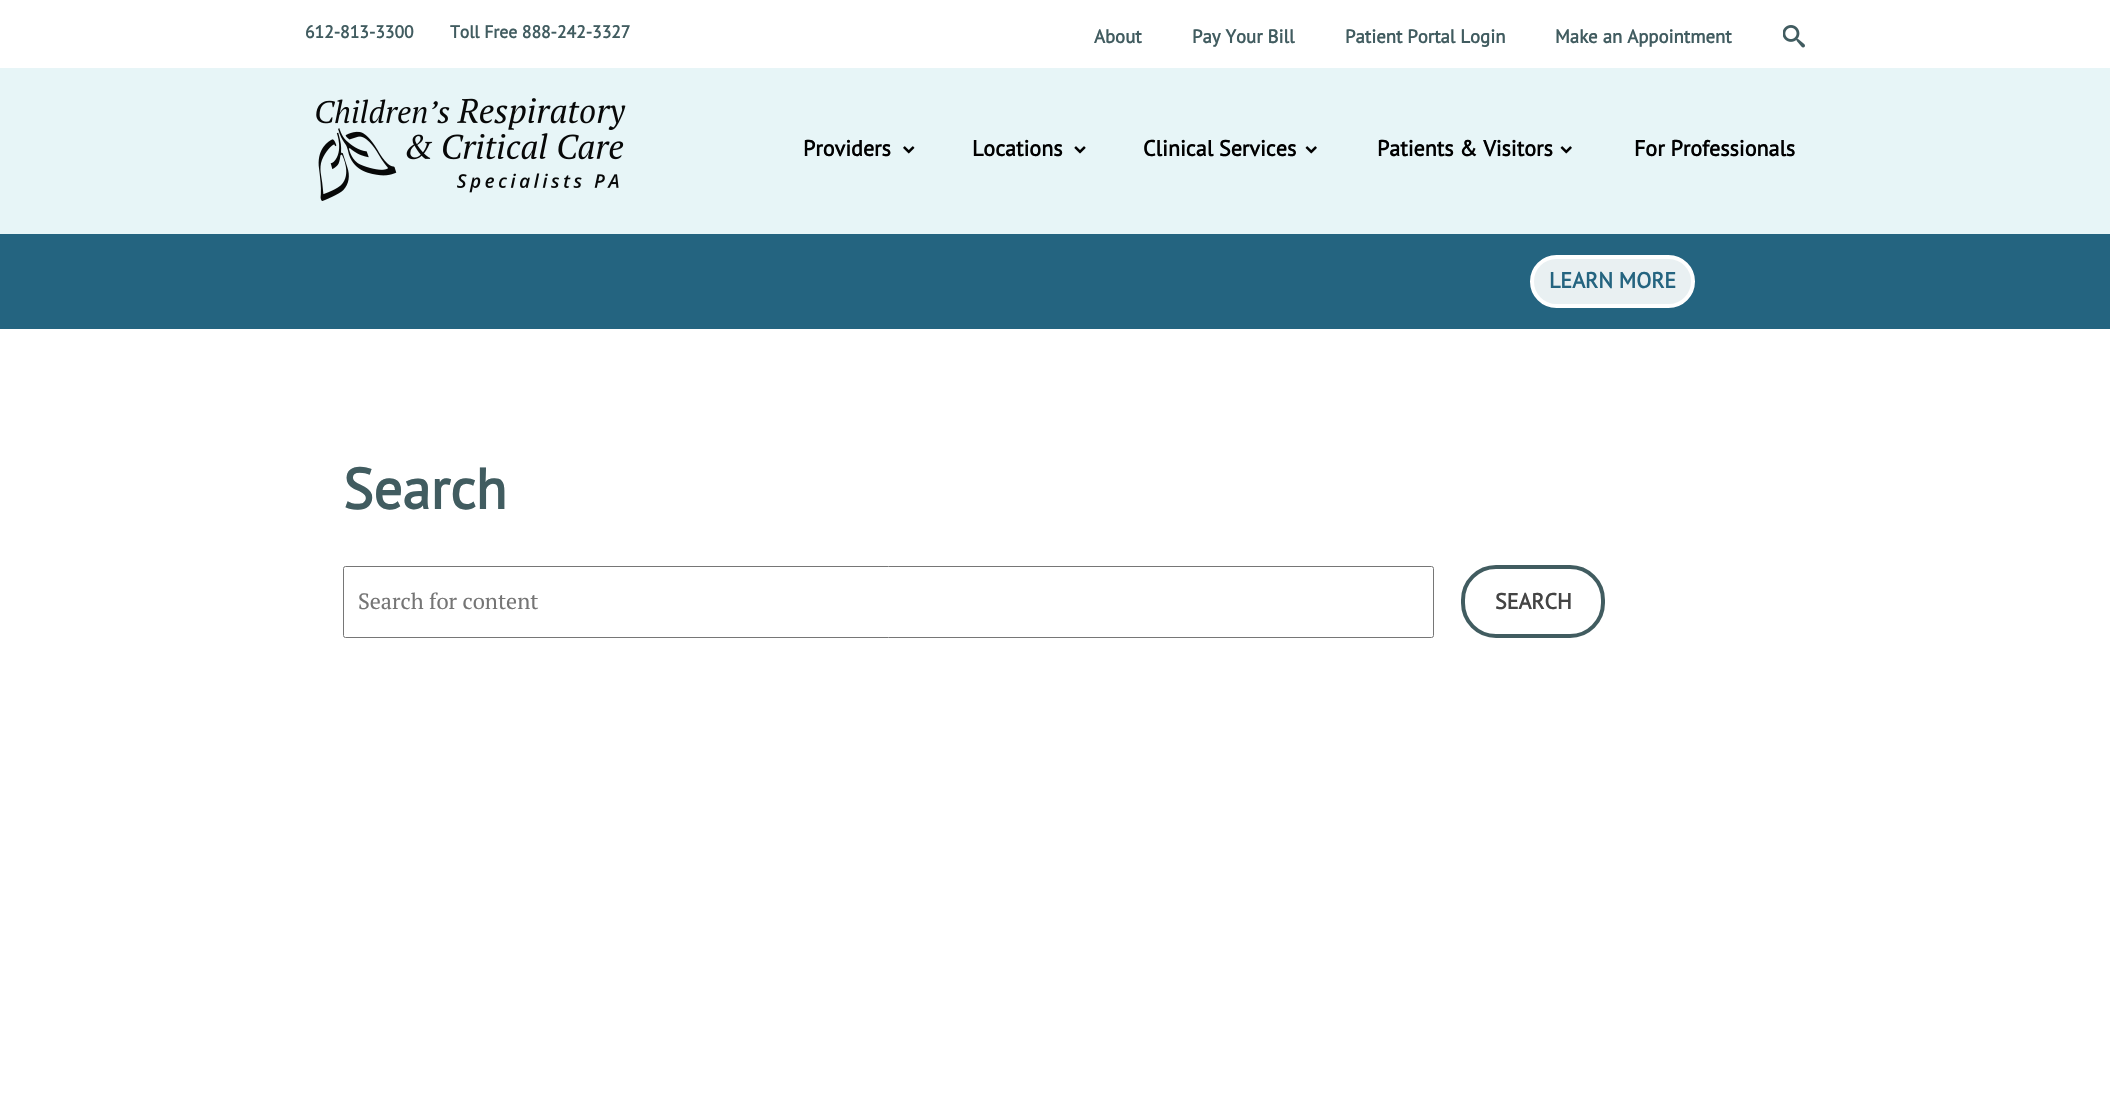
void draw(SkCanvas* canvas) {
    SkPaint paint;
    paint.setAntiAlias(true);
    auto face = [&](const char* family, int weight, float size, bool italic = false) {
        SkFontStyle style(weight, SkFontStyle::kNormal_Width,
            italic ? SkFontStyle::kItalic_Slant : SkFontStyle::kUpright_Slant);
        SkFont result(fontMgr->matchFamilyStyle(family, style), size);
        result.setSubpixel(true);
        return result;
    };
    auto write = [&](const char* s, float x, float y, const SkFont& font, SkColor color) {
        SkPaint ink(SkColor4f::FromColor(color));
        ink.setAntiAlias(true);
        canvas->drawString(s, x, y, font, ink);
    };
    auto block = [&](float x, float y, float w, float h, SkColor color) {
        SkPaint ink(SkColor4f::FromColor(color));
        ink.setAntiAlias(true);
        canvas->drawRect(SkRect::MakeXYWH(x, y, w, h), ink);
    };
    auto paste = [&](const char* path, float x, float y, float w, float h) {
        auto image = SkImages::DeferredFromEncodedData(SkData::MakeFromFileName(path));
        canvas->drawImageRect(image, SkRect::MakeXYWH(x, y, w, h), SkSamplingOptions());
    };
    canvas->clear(SK_ColorWHITE);
    auto kFont1 = face("PT Sans", 700, 17.6f);
    write("612-813-3300", 305, 38, kFont1, SkColorSetRGB(65, 92, 96));
    write("Toll Free 888-242-3327", 450, 38, kFont1, SkColorSetRGB(65, 92, 96));
    auto kFont2 = face("PT Sans", 700, 18.75f);
    write("About", 1094, 43, kFont2, SkColorSetRGB(65, 92, 96));
    write("Pay Your Bill", 1192, 43, kFont2, SkColorSetRGB(65, 92, 96));
    write("Patient Portal Login", 1345, 43, kFont2, SkColorSetRGB(65, 92, 96));
    write("Make an Appointment", 1555, 43, kFont2, SkColorSetRGB(65, 92, 96));
    paste("pic1.png", 1783, 25, 22, 23);
    block(0, 68, 2110, 166, SkColorSetRGB(231, 245, 247));
    paste("pic2.png", 316, 98, 310, 103);
    paste("pic3.png", 903, 146, 12, 8);
    auto kFont3 = face("PT Sans", 700, 22);
    write("Providers", 803, 156, kFont3, SK_ColorBLACK);
    paste("pic4.png", 1074, 146, 12, 8);
    write("Locations", 972, 156, kFont3, SK_ColorBLACK);
    paste("pic5.png", 1305, 146, 12, 8);
    write("Clinical Services", 1143, 156, kFont3, SK_ColorBLACK);
    paste("pic5.png", 1560, 146, 12, 8);
    write("Patients & Visitors", 1377, 156, kFont3, SK_ColorBLACK);
    write("For Professionals", 1634, 156, kFont3, SK_ColorBLACK);
    block(0, 234, 2110, 95, SkColorSetRGB(36, 100, 128));
    paint.setColor(SkColorSetRGB(233, 240, 242));
    canvas->drawRoundRect(SkRect::MakeXYWH(1532, 257, 161, 49), 24.5f, 24.5f, paint);
    paint.setStyle(SkPaint::kStroke_Style);
    paint.setStrokeWidth(4);
    paint.setColor(SK_ColorWHITE);
    canvas->drawRoundRect(SkRect::MakeXYWH(1532, 257, 161, 49), 24.5f, 24.5f, paint);
    write("LEARN MORE", 1549, 288, kFont3, SkColorSetRGB(36, 100, 128));
    auto kFont4 = face("PT Sans", 700, 57);
    write("Search", 343, 509, kFont4, SkColorSetRGB(65, 92, 96));
    paint.setStrokeWidth(1);
    paint.setColor(SkColorSetRGB(118, 118, 118));
    canvas->drawRoundRect(SkRect::MakeXYWH(343.5f, 566.5f, 1090, 71), 2, 2, paint);
    auto kFont5 = face("PT Serif", 400, 22);
    write("Search for content", 358, 609, kFont5, SkColorSetRGB(117, 117, 117));
    paint.setStrokeWidth(4);
    paint.setColor(SkColorSetRGB(65, 92, 96));
    canvas->drawRoundRect(SkRect::MakeXYWH(1463, 567, 140, 69), 33, 33, paint);
    write("SEARCH", 1495, 609, kFont3, SkColorSetRGB(68, 68, 68));
}
